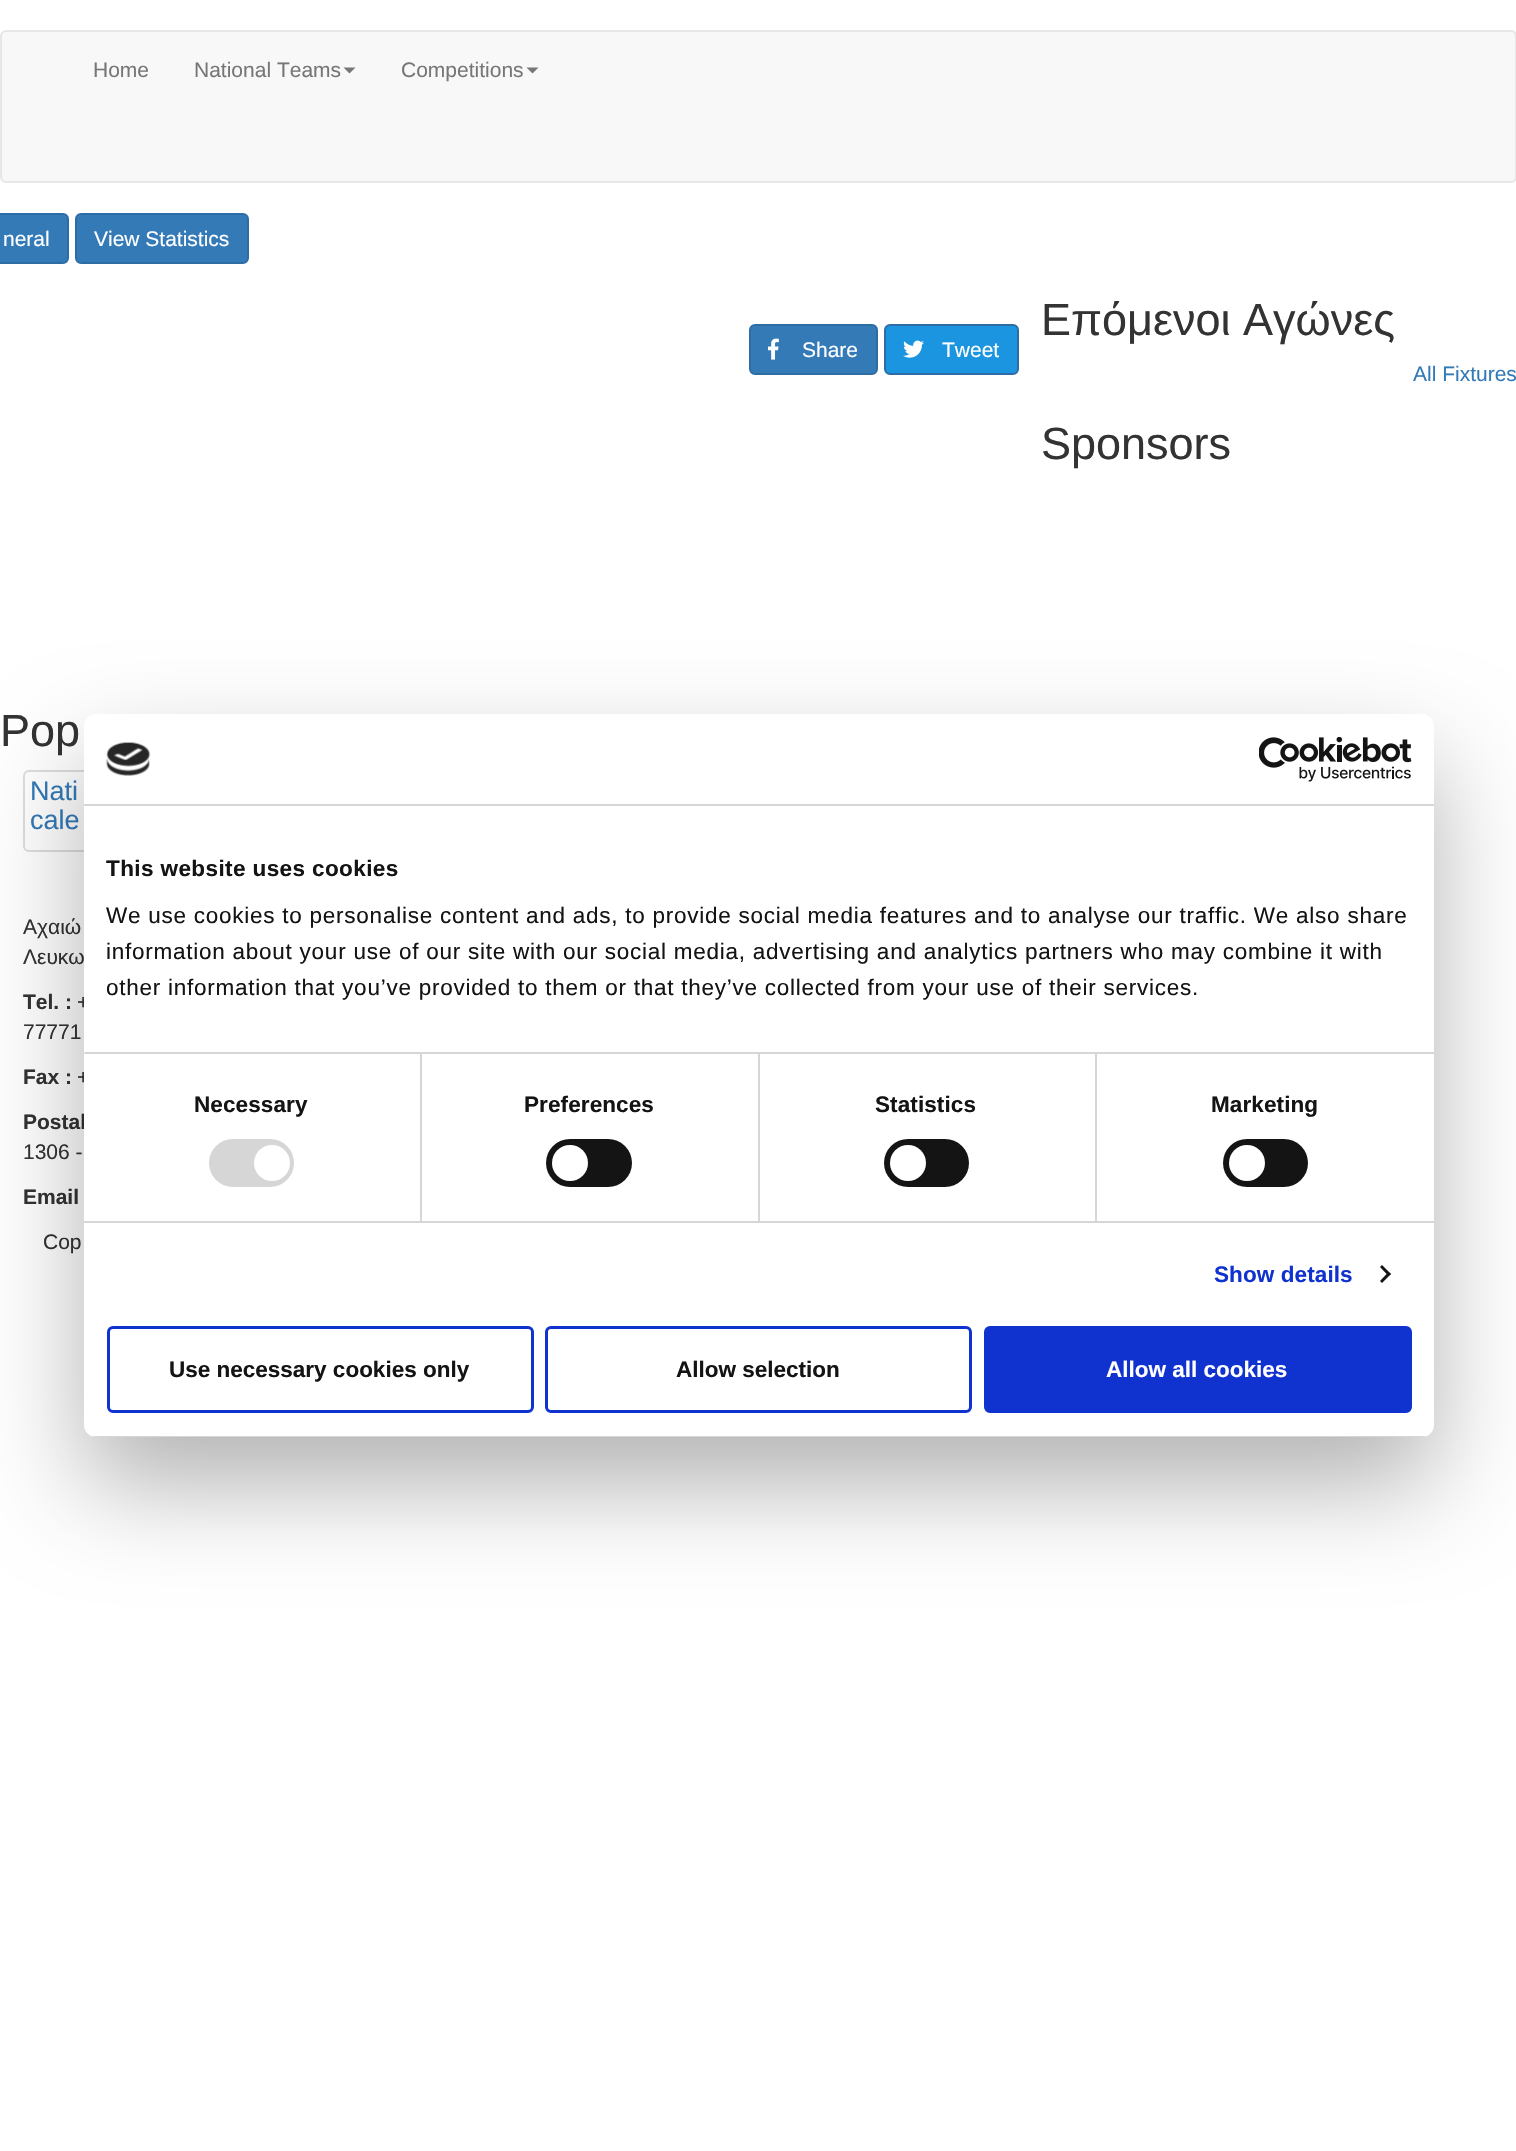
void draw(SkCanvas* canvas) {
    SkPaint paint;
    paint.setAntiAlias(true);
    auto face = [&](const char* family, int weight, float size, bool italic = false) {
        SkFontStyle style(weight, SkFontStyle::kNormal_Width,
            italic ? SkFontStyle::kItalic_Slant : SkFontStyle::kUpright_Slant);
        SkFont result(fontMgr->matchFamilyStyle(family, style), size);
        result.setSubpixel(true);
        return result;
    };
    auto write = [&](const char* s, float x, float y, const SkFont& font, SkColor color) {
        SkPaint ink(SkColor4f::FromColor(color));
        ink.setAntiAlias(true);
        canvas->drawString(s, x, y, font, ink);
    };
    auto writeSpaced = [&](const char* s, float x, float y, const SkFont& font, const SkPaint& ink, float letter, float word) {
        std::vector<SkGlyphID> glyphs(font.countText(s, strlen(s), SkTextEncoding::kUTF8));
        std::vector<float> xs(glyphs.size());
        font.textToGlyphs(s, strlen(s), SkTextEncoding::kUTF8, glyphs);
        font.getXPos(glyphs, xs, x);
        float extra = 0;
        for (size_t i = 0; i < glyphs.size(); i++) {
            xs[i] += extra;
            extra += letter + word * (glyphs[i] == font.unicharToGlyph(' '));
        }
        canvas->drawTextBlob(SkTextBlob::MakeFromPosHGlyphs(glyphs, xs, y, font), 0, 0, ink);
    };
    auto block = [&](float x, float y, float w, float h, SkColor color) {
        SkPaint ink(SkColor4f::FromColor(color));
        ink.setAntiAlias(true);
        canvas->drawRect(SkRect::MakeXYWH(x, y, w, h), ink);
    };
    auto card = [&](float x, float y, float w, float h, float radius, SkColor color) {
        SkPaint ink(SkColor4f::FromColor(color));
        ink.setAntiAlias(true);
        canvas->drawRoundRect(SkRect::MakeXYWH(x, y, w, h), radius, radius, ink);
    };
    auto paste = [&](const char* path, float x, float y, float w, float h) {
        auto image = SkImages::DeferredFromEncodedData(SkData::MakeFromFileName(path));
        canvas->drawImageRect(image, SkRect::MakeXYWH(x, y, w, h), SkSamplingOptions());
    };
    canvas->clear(SK_ColorWHITE);
    paint.setColor(SkColorSetRGB(248, 248, 248));
    canvas->drawRoundRect(SkRect::MakeXYWH(1, 31, 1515, 151), 5, 5, paint);
    paint.setStyle(SkPaint::kStroke_Style);
    paint.setStrokeWidth(2);
    paint.setColor(SkColorSetRGB(231, 231, 231));
    canvas->drawRoundRect(SkRect::MakeXYWH(1, 31, 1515, 151), 5, 5, paint);
    auto kFont1 = face("Liberation Sans", 400, 21);
    write("Home", 93, 77, kFont1, SkColorSetRGB(119, 119, 119));
    write("National Teams", 194, 77, kFont1, SkColorSetRGB(119, 119, 119));
    paint.setStyle(SkPaint::kFill_Style);
    paint.setColor(SkColorSetRGB(119, 119, 119));
    canvas->drawPath(SkPathBuilder().moveTo(343.5f, 67.5f).lineTo(355.5f, 67.5f).lineTo(349.5f, 73.5f).close().detach(), paint);
    write("Competitions", 401, 77, kFont1, SkColorSetRGB(119, 119, 119));
    canvas->drawPath(SkPathBuilder().moveTo(526.5f, 67.5f).lineTo(538.5f, 67.5f).lineTo(532.5f, 73.5f).close().detach(), paint);
    paint.setColor(SkColorSetRGB(51, 122, 183));
    canvas->drawRoundRect(SkRect::MakeXYWH(-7, 214, 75, 49), 5, 5, paint);
    paint.setStyle(SkPaint::kStroke_Style);
    paint.setColor(SkColorSetRGB(46, 109, 164));
    canvas->drawRoundRect(SkRect::MakeXYWH(-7, 214, 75, 49), 5, 5, paint);
    write("neral", 3, 246, kFont1, SK_ColorWHITE);
    paint.setStyle(SkPaint::kFill_Style);
    paint.setColor(SkColorSetRGB(51, 122, 183));
    canvas->drawRoundRect(SkRect::MakeXYWH(76, 214, 172, 49), 5, 5, paint);
    paint.setStyle(SkPaint::kStroke_Style);
    paint.setColor(SkColorSetRGB(46, 109, 164));
    canvas->drawRoundRect(SkRect::MakeXYWH(76, 214, 172, 49), 5, 5, paint);
    write("View Statistics", 94, 246, kFont1, SK_ColorWHITE);
    paint.setStyle(SkPaint::kFill_Style);
    paint.setColor(SkColorSetRGB(51, 122, 183));
    canvas->drawRoundRect(SkRect::MakeXYWH(750, 325, 127, 49), 5, 5, paint);
    paint.setStyle(SkPaint::kStroke_Style);
    paint.setColor(SkColorSetRGB(46, 109, 164));
    canvas->drawRoundRect(SkRect::MakeXYWH(750, 325, 127, 49), 5, 5, paint);
    paste("pic1.png", 768, 338, 11, 22);
    write("Share", 802, 357, kFont1, SK_ColorWHITE);
    paint.setStyle(SkPaint::kFill_Style);
    paint.setColor(SkColorSetRGB(27, 149, 224));
    canvas->drawRoundRect(SkRect::MakeXYWH(885, 325, 133, 49), 5, 5, paint);
    paint.setStyle(SkPaint::kStroke_Style);
    paint.setColor(SkColorSetRGB(46, 109, 164));
    canvas->drawRoundRect(SkRect::MakeXYWH(885, 325, 133, 49), 5, 5, paint);
    paste("pic2.png", 903, 340, 21, 18);
    write("Tweet", 942, 357, kFont1, SK_ColorWHITE);
    auto kFont2 = face("Liberation Sans", 400, 45);
    write("Επόμενοι Αγώνες", 1041, 335, kFont2, SkColorSetRGB(51, 51, 51));
    write("All Fixtures", 1413, 381, kFont1, SkColorSetRGB(51, 122, 183));
    write("Sponsors", 1041, 459, kFont2, SkColorSetRGB(51, 51, 51));
    write("Pop", 0, 746, kFont2, SkColorSetRGB(51, 51, 51));
    paint.setColor(SkColorSetRGB(221, 221, 221));
    canvas->drawRoundRect(SkRect::MakeXYWH(24, 771, 332, 80), 5, 5, paint);
    auto kFont3 = face("Liberation Sans", 400, 27);
    write("Nati", 30, 800, kFont3, SkColorSetRGB(51, 122, 183));
    write("cale", 30, 829, kFont3, SkColorSetRGB(51, 122, 183));
    write("Αχαιώ", 23, 934, kFont1, SkColorSetRGB(51, 51, 51));
    write("Λευκω", 23, 964, kFont1, SkColorSetRGB(51, 51, 51));
    auto kFont4 = face("Liberation Sans", 700, 21);
    write("Tel. :", 23, 1009, kFont4, SkColorSetRGB(51, 51, 51));
    write("+", 77, 1009, kFont1, SkColorSetRGB(51, 51, 51));
    write("77771", 23, 1039, kFont1, SkColorSetRGB(51, 51, 51));
    write("Fax :", 23, 1084, kFont4, SkColorSetRGB(51, 51, 51));
    write("+", 77, 1084, kFont1, SkColorSetRGB(51, 51, 51));
    write("Postal", 23, 1129, kFont4, SkColorSetRGB(51, 51, 51));
    write("1306 -", 23, 1159, kFont1, SkColorSetRGB(51, 51, 51));
    write("Email", 23, 1204, kFont4, SkColorSetRGB(51, 51, 51));
    write("Cop", 43, 1249, kFont1, SkColorSetRGB(51, 51, 51));
    paint.setStyle(SkPaint::kFill_Style);
    paint.setColor(SkColorSetARGB(77, 0, 0, 0));
    paint.setMaskFilter(SkMaskFilter::MakeBlur(kNormal_SkBlurStyle, 51));
    canvas->drawRoundRect(SkRect::MakeXYWH(84, 762, 1350, 723), 12, 12, paint);
    paint.setMaskFilter(nullptr);
    card(84, 714, 1350, 723, 12, SK_ColorWHITE);
    block(84, 804, 1350, 2, SkColorSetRGB(214, 214, 214));
    paste("pic3.png", 106, 742, 45, 34);
    paste("pic4.png", 1259, 737, 153, 45);
    block(420, 1053, 2, 168, SkColorSetRGB(214, 214, 214));
    block(758, 1053, 2, 168, SkColorSetRGB(214, 214, 214));
    block(1095, 1053, 2, 168, SkColorSetRGB(214, 214, 214));
    block(84, 1052, 1350, 2, SkColorSetRGB(214, 214, 214));
    auto kFont5 = face("Liberation Sans", 700, 22.5f);
    paint.setColor(SkColorSetRGB(20, 20, 20));
    writeSpaced("This website uses cookies", 106, 876, kFont5, paint, 0.4f, 0);
    auto kFont6 = face("Liberation Sans", 400, 22.5f);
    writeSpaced("We use cookies to personalise content and ads, to provide social media features and to analyse our traffic. We also share", 106, 923, kFont6, paint, 0.75f, 0);
    writeSpaced("information about your use of our site with our social media, advertising and analytics partners who may combine it with", 106, 959, kFont6, paint, 0.75f, 0);
    writeSpaced("other information that you’ve provided to them or that they’ve collected from your use of their services.", 106, 995, kFont6, paint, 0.75f, 0);
    block(84, 1221, 1350, 2, SkColorSetRGB(214, 214, 214));
    block(84, 1052, 1, 2, SkColorSetRGB(229, 229, 229));
    writeSpaced("Necessary", 194, 1112, kFont5, paint, 0.1f, 0);
    card(209, 1139, 85, 48, 24, SkColorSetRGB(214, 214, 214));
    paint.setColor(SK_ColorWHITE);
    canvas->drawCircle(272, 1163, 18, paint);
    paint.setColor(SkColorSetRGB(20, 20, 20));
    writeSpaced("Preferences", 524, 1112, kFont5, paint, 0.1f, 0);
    card(546, 1139, 86, 48, 24, SkColorSetRGB(20, 20, 20));
    paint.setColor(SK_ColorWHITE);
    canvas->drawCircle(570, 1163, 18, paint);
    paint.setColor(SkColorSetRGB(20, 20, 20));
    writeSpaced("Statistics", 875, 1112, kFont5, paint, 0.1f, 0);
    card(884, 1139, 85, 48, 24, SkColorSetRGB(20, 20, 20));
    paint.setColor(SK_ColorWHITE);
    canvas->drawCircle(908, 1163, 18, paint);
    paint.setColor(SkColorSetRGB(20, 20, 20));
    writeSpaced("Marketing", 1211, 1112, kFont5, paint, 0.1f, 0);
    card(1223, 1139, 85, 48, 24, SkColorSetRGB(20, 20, 20));
    paint.setColor(SK_ColorWHITE);
    canvas->drawCircle(1247, 1163, 18, paint);
    paint.setColor(SkColorSetRGB(16, 50, 207));
    writeSpaced("Show details", 1214, 1282, kFont5, paint, 0.1f, 0);
    paint.setColor(SkColorSetRGB(20, 20, 20));
    canvas->drawPath(SkPathBuilder().moveTo(1382, 1265).lineTo(1391, 1274).lineTo(1388.5f, 1276).lineTo(1380, 1267).close().detach(), paint);
    canvas->drawPath(SkPathBuilder().moveTo(1388.5f, 1272).lineTo(1391, 1274).lineTo(1382, 1283).lineTo(1380, 1281).close().detach(), paint);
    canvas->save();
    canvas->clipPath(SkPathBuilder().moveTo(96, 714).lineTo(1422, 714).cubicTo(1428.5f, 714, 1434, 719.5f, 1434, 726).lineTo(1434, 1425).cubicTo(1434, 1431.5f, 1428.5f, 1437, 1422, 1437).lineTo(96, 1437).cubicTo(89.5f, 1437, 84, 1431.5f, 84, 1425).lineTo(84, 726).cubicTo(84, 719.5f, 89.5f, 714, 96, 714).close().detach(), true);
    block(84, 1436, 1350, 1, SkColorSetRGB(214, 214, 214));
    canvas->restore();
    paint.setStyle(SkPaint::kStroke_Style);
    paint.setStrokeWidth(3);
    paint.setColor(SkColorSetRGB(16, 50, 207));
    canvas->drawRoundRect(SkRect::MakeXYWH(108.5f, 1327.5f, 424, 84), 4.5f, 4.5f, paint);
    write("Use necessary cookies only", 169, 1377, kFont5, SkColorSetRGB(20, 20, 20));
    canvas->drawRoundRect(SkRect::MakeXYWH(546.5f, 1327.5f, 424, 84), 4.5f, 4.5f, paint);
    write("Allow selection", 676, 1377, kFont5, SkColorSetRGB(20, 20, 20));
    paint.setStyle(SkPaint::kFill_Style);
    canvas->drawRoundRect(SkRect::MakeXYWH(985.5f, 1327.5f, 425, 84), 4.5f, 4.5f, paint);
    paint.setStyle(SkPaint::kStroke_Style);
    canvas->drawRoundRect(SkRect::MakeXYWH(985.5f, 1327.5f, 425, 84), 4.5f, 4.5f, paint);
    write("Allow all cookies", 1106, 1377, kFont5, SK_ColorWHITE);
}
